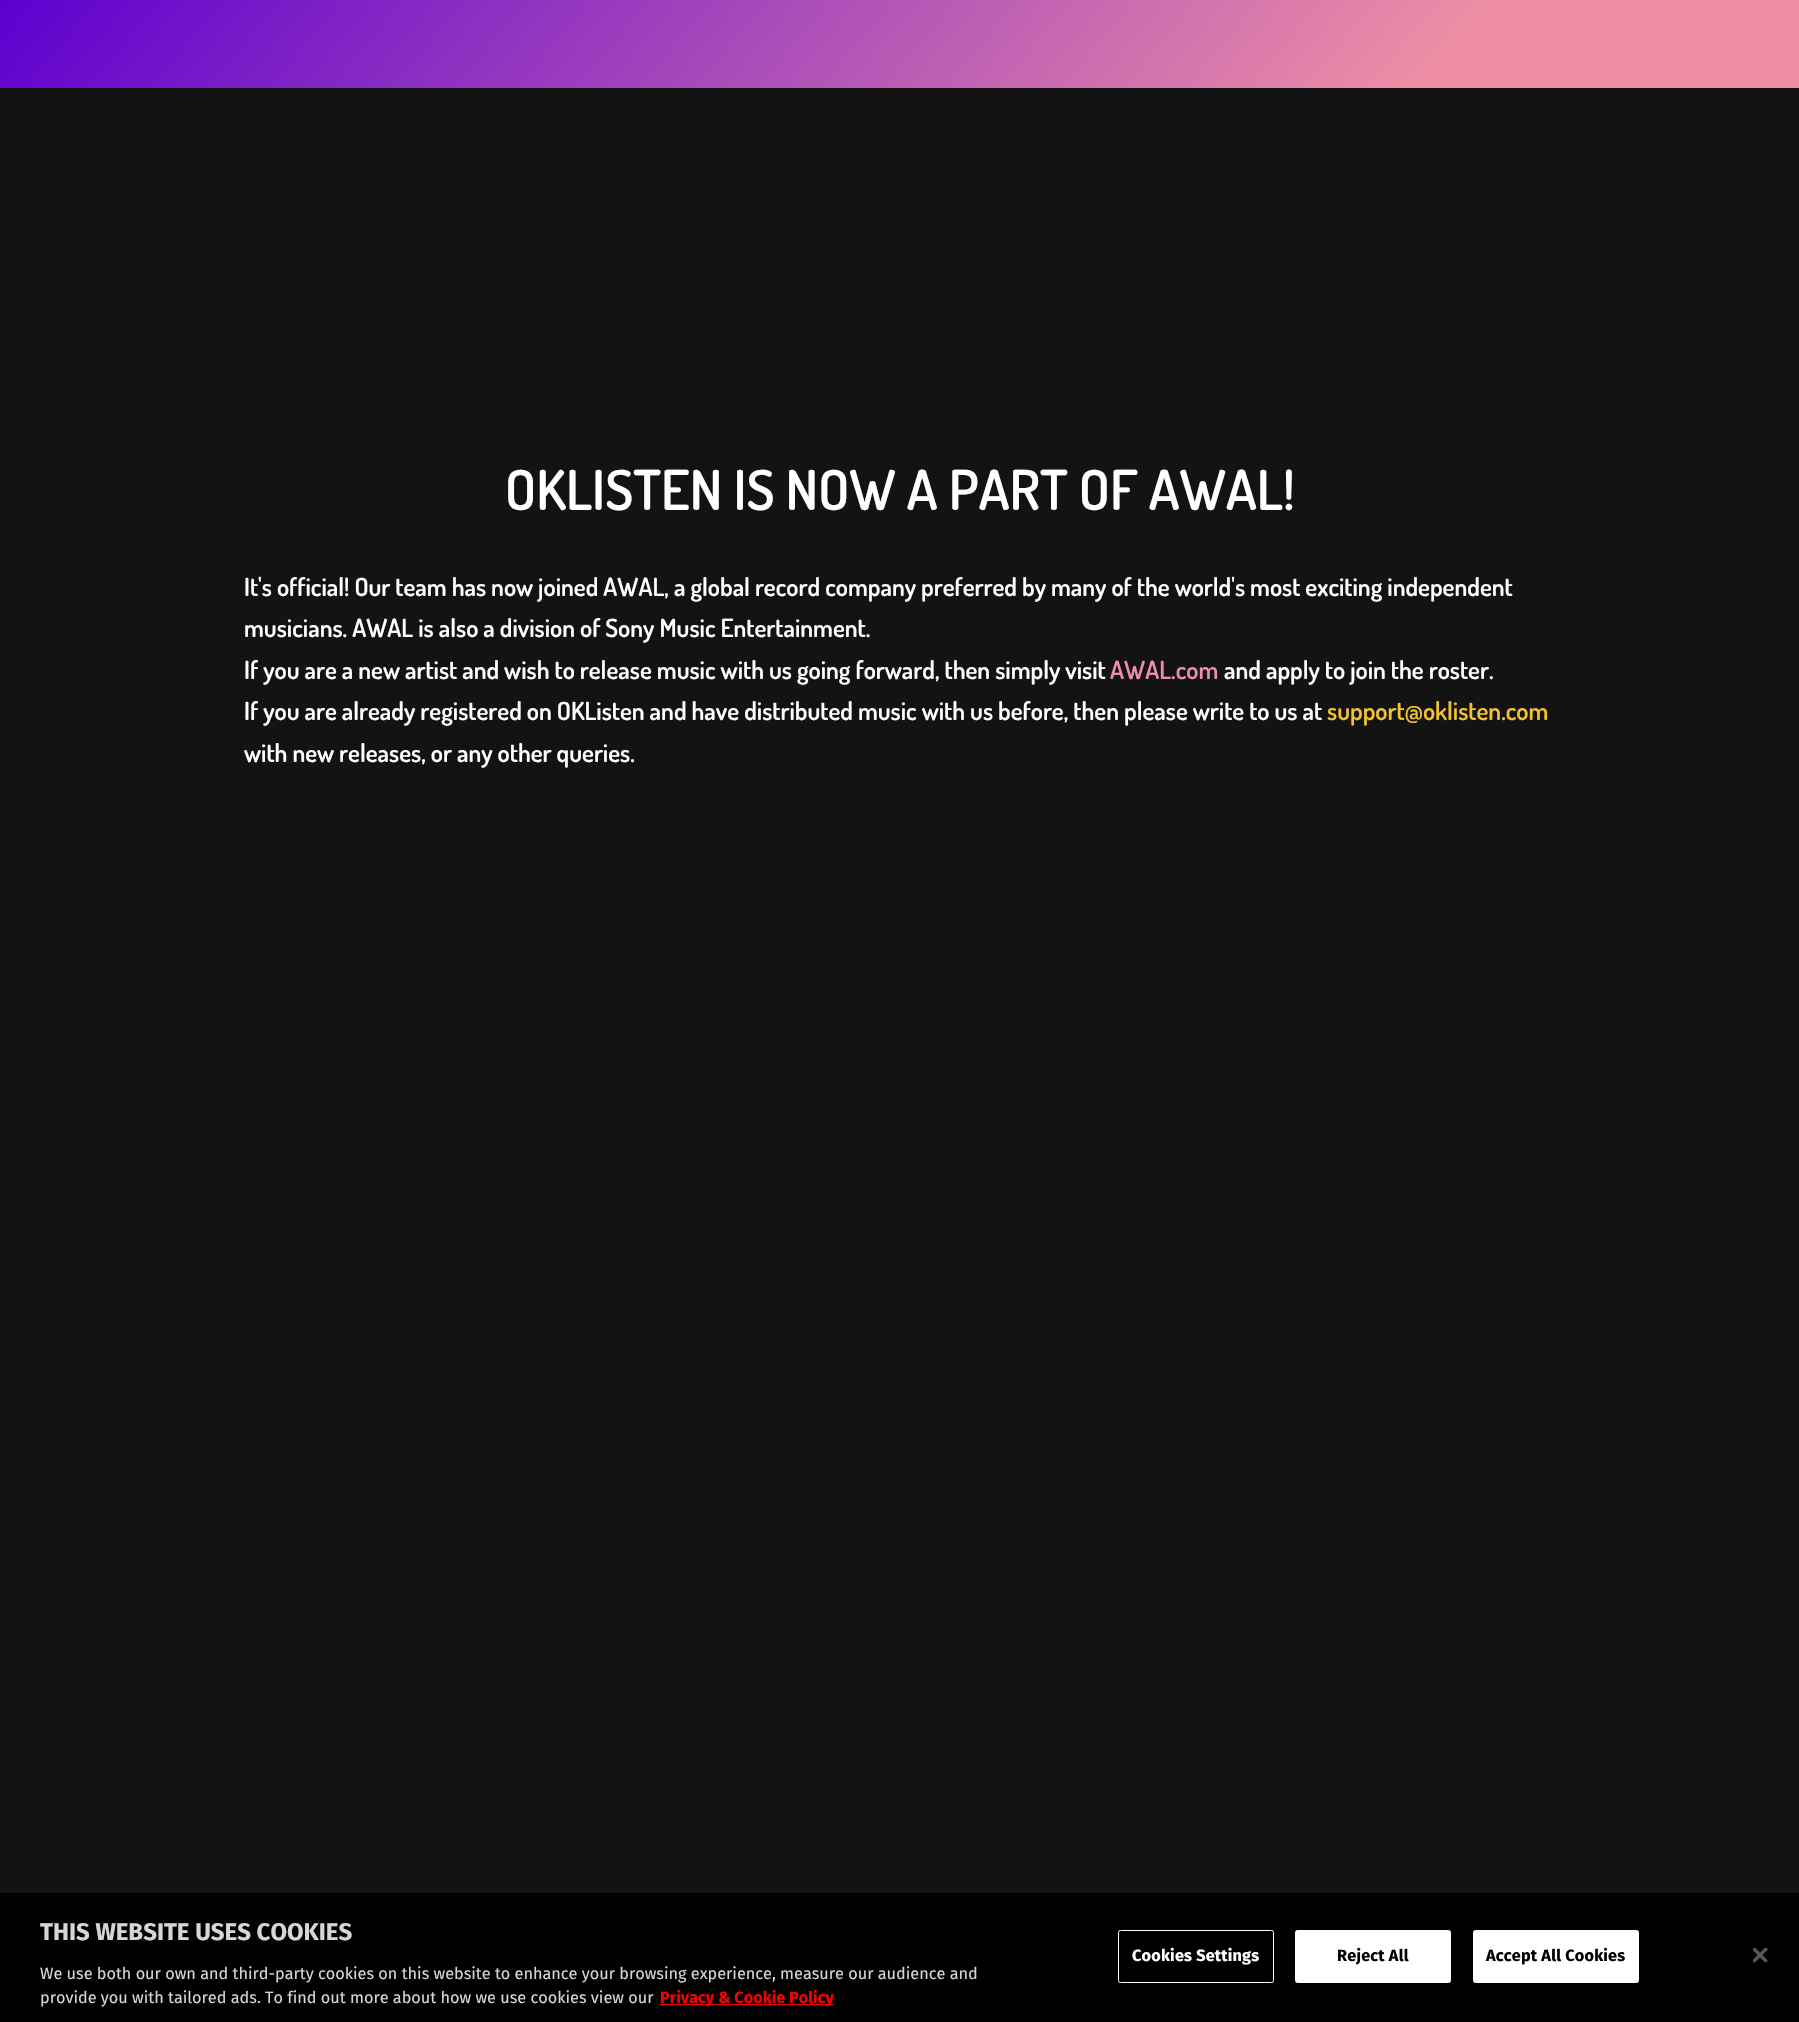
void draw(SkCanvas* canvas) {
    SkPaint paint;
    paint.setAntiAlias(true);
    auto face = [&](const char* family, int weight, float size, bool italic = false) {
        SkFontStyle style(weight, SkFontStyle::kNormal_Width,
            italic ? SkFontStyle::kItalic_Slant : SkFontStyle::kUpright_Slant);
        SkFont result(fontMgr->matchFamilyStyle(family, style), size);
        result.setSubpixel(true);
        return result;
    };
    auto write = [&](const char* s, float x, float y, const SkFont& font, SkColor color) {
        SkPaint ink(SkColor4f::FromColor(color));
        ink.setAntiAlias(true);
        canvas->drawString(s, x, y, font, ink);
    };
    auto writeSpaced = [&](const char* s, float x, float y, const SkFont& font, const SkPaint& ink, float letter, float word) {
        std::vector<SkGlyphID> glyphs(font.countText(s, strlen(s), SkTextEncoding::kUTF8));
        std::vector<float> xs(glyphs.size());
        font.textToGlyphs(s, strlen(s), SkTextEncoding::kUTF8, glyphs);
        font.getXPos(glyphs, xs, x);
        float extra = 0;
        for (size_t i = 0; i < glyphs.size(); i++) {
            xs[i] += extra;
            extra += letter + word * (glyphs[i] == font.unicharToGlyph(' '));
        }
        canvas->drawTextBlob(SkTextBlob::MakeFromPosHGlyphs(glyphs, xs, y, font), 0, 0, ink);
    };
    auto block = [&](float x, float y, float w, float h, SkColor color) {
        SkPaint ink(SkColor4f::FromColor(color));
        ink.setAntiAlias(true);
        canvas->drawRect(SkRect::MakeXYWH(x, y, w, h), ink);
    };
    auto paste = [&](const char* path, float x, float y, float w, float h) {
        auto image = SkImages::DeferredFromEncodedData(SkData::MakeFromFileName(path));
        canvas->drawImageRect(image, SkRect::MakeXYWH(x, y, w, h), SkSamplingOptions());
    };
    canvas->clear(SkColorSetRGB(19, 19, 20));
    {
        const SkColor colors[] = {SkColorSetRGB(92, 0, 208), SkColorSetRGB(238, 143, 165)};
        const float stops[] = {0, 0.8f};
        const SkPoint ends[] = {{350, -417}, {1450, 505}};
        paint.setShader(SkGradientShader::MakeLinear(ends, colors, stops, 2, SkTileMode::kClamp));
        paint.setAlpha(255);
    }
    canvas->drawRect(SkRect::MakeXYWH(0, 0, 1799, 88), paint);
    auto kFont1 = face("Dosis", 600, 55);
    write("OKLISTEN IS NOW A PART OF AWAL!", 505, 510, kFont1, SK_ColorWHITE);
    auto kFont2 = face("Dosis", 600, 25);
    write("It's official! Our team has now joined AWAL, a global record company preferred by many of the world's most exciting independent", 244, 596, kFont2, SK_ColorWHITE);
    write("musicians. AWAL is also a division of Sony Music Entertainment.", 244, 637, kFont2, SK_ColorWHITE);
    write("If you are a new artist and wish to release music with us going forward, then simply visit", 244, 679, kFont2, SK_ColorWHITE);
    write("AWAL.com", 1110, 679, kFont2, SkColorSetRGB(238, 143, 165));
    write("and apply to join the roster.", 1224, 679, kFont2, SK_ColorWHITE);
    write("If you are already registered on OKListen and have distributed music with us before, then please write to us at", 244, 720, kFont2, SK_ColorWHITE);
    write("support@oklisten.com", 1327, 720, kFont2, SkColorSetRGB(241, 194, 50));
    write("with new releases, or any other queries.", 244, 762, kFont2, SK_ColorWHITE);
    block(0, 1893, 1799, 129, SK_ColorBLACK);
    auto kFont3 = face("Fira Sans", 700, 24);
    write("THIS WEBSITE USES COOKIES", 40, 1940, kFont3, SkColorSetRGB(214, 214, 214));
    auto kFont4 = face("Fira Sans", 400, 16.25f);
    write("We use both our own and third-party cookies on this website to enhance your browsing experience, measure our audience and", 40, 1979, kFont4, SkColorSetRGB(214, 214, 214));
    write("provide you with tailored ads. To find out more about how we use cookies view our", 40, 2003, kFont4, SkColorSetRGB(214, 214, 214));
    block(660, 2004, 174, 1, SkColorSetRGB(249, 0, 0));
    auto kFont5 = face("Fira Sans", 700, 16.25f);
    write("Privacy & Cookie Policy", 660, 2003, kFont5, SkColorSetRGB(249, 0, 0));
    paint.setStyle(SkPaint::kStroke_Style);
    paint.setStrokeWidth(1);
    paint.setShader(nullptr);
    paint.setColor(SK_ColorWHITE);
    canvas->drawRoundRect(SkRect::MakeXYWH(1118.5f, 1930.5f, 155, 52), 2, 2, paint);
    paint.setStyle(SkPaint::kFill_Style);
    writeSpaced("Cookies Settings", 1132, 1961, kFont5, paint, 0.2f, 0);
    canvas->drawRoundRect(SkRect::MakeXYWH(1295.5f, 1930.5f, 155, 52), 2, 2, paint);
    paint.setStyle(SkPaint::kStroke_Style);
    canvas->drawRoundRect(SkRect::MakeXYWH(1295.5f, 1930.5f, 155, 52), 2, 2, paint);
    paint.setStyle(SkPaint::kFill_Style);
    paint.setColor(SK_ColorBLACK);
    writeSpaced("Reject All", 1337, 1961, kFont5, paint, 0.2f, 0);
    paint.setColor(SK_ColorWHITE);
    canvas->drawRoundRect(SkRect::MakeXYWH(1473.5f, 1930.5f, 165, 52), 2, 2, paint);
    paint.setStyle(SkPaint::kStroke_Style);
    canvas->drawRoundRect(SkRect::MakeXYWH(1473.5f, 1930.5f, 165, 52), 2, 2, paint);
    paint.setStyle(SkPaint::kFill_Style);
    paint.setColor(SK_ColorBLACK);
    writeSpaced("Accept All Cookies", 1486, 1961, kFont5, paint, 0.2f, 0);
    paste("pic1.png", 1753, 1948, 15, 15);
}
